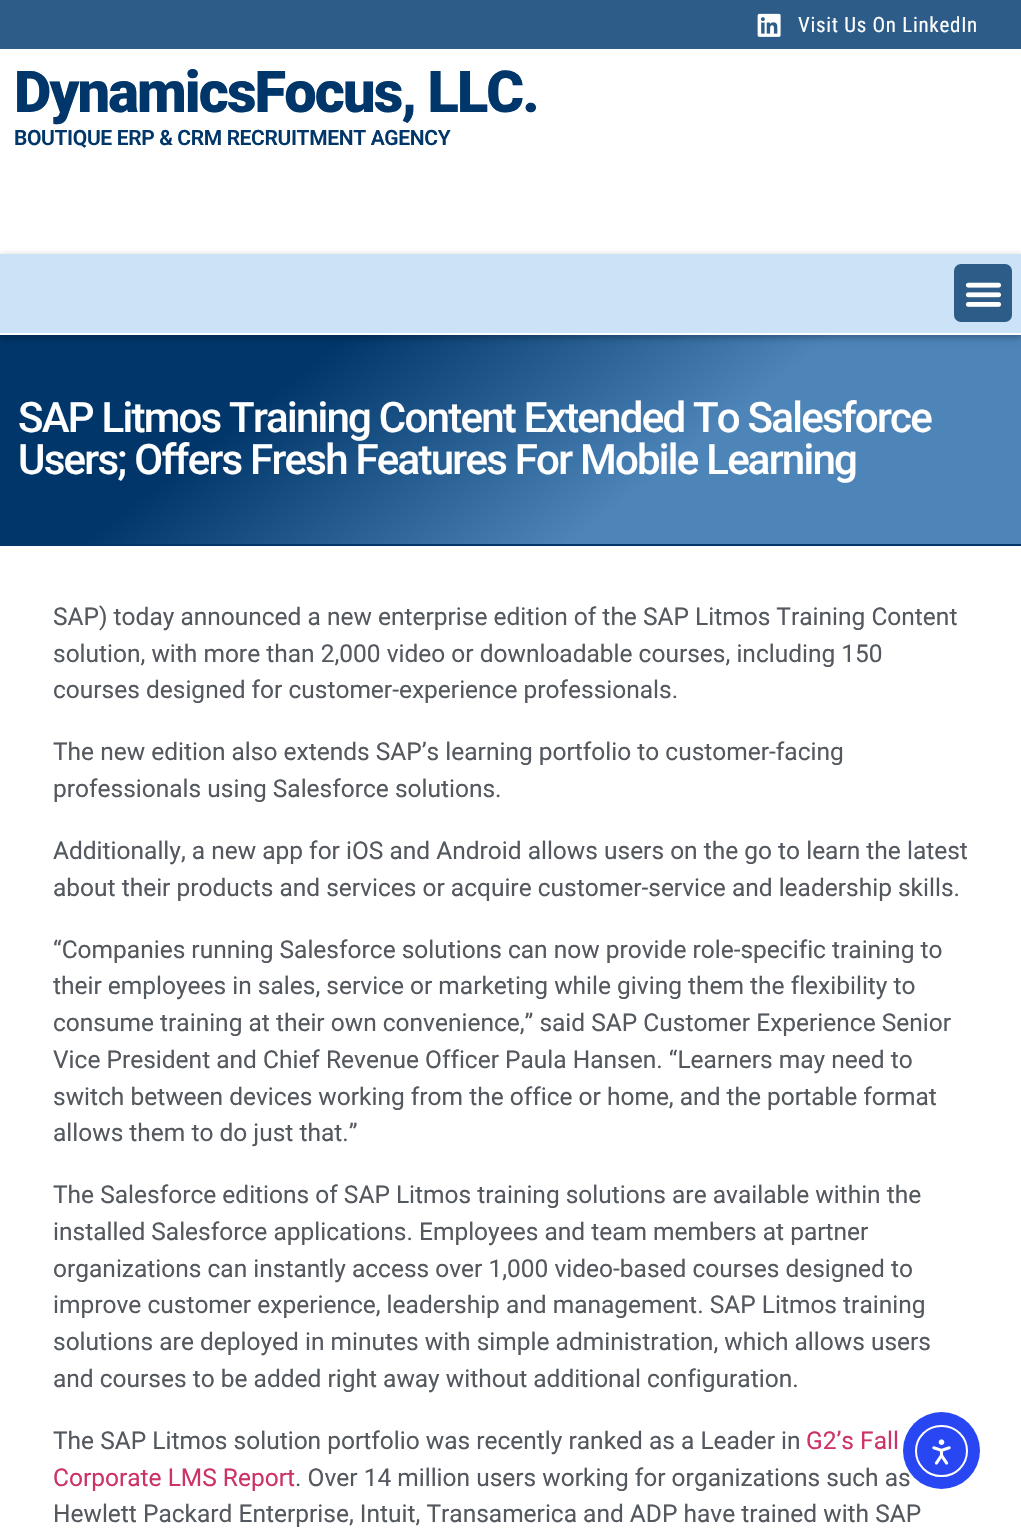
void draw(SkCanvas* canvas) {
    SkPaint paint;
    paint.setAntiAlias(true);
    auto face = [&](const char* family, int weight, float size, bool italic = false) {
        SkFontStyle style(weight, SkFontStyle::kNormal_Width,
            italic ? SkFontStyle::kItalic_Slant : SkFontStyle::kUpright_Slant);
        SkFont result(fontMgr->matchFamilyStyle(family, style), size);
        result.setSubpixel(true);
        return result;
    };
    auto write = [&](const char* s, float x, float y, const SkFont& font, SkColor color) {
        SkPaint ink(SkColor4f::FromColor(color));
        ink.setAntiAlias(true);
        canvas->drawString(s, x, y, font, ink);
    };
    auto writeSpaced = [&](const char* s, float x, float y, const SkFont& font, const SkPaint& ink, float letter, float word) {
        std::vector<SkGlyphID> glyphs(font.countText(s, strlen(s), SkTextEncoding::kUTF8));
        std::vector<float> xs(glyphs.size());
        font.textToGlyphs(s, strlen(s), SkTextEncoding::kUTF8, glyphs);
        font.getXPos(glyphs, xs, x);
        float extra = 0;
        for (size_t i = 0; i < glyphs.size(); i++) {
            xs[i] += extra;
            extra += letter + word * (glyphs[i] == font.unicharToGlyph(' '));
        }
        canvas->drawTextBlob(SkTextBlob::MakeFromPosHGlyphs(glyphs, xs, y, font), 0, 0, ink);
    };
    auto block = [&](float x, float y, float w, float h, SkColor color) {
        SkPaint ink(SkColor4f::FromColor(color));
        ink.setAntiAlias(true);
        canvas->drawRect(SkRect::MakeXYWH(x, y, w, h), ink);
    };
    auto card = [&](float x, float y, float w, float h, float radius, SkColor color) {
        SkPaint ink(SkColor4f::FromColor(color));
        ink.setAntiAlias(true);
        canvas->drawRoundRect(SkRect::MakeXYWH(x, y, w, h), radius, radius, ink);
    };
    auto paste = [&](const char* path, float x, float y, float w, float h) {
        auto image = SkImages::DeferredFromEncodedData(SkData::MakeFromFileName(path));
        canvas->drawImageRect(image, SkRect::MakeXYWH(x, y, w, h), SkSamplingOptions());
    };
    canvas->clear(SK_ColorWHITE);
    block(0, 0, 1021, 49, SkColorSetRGB(45, 92, 136));
    paste("pic1.png", 757, 13, 24, 24);
    auto kFont1 = face("Roboto Condensed", 400, 21);
    paint.setColor(SK_ColorWHITE);
    writeSpaced("Visit Us On LinkedIn", 798, 32, kFont1, paint, 0.7f, 0);
    auto kFont2 = face("Roboto", 900, 57.75f);
    paint.setColor(SkColorSetRGB(0, 54, 105));
    writeSpaced("DynamicsFocus, LLC.", 14, 112, kFont2, paint, -1.9f, 0);
    auto kFont3 = face("Roboto", 600, 21);
    writeSpaced("BOUTIQUE ERP & CRM RECRUITMENT AGENCY", 14, 145, kFont3, paint, -0.35f, 0);
    {
        const SkColor colors[] = {SkColorSetRGB(0, 54, 105), SkColorSetRGB(77, 133, 185)};
        const float stops[] = {0.27f, 0.65f};
        const SkPoint ends[] = {{266, 126}, {756, 752}};
        paint.setShader(SkGradientShader::MakeLinear(ends, colors, stops, 2, SkTileMode::kClamp));
        paint.setAlpha(255);
    }
    canvas->drawRect(SkRect::MakeXYWH(0, 335, 1021, 209), paint);
    paint.setShader(nullptr);
    paint.setColor(SkColorSetARGB(71, 0, 0, 0));
    paint.setMaskFilter(SkMaskFilter::MakeBlur(kNormal_SkBlurStyle, 3.5f));
    canvas->drawRect(SkRect::MakeXYWH(0, 256, 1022, 82), paint);
    paint.setMaskFilter(nullptr);
    block(0, 254, 1021, 79, SkColorSetRGB(203, 226, 247));
    block(0, 333, 1021, 2, SK_ColorWHITE);
    card(954, 264, 58, 58, 7, SkColorSetRGB(45, 92, 136));
    paste("pic2.png", 965, 282, 37, 25);
    block(0, 544, 1021, 2, SkColorSetRGB(0, 54, 105));
    auto kFont4 = face("Roboto", 500, 42);
    paint.setColor(SK_ColorWHITE);
    writeSpaced("SAP Litmos Training Content Extended To Salesforce", 18, 432, kFont4, paint, -1.75f, 0);
    writeSpaced("Users; Offers Fresh Features For Mobile Learning", 18, 474, kFont4, paint, -1.75f, 0);
    auto kFont5 = face("Roboto", 400, 24.5f);
    write("SAP) today announced a new enterprise edition of the SAP Litmos Training Content", 53, 625, kFont5, SkColorSetRGB(84, 89, 95));
    write("solution, with more than 2,000 video or downloadable courses, including 150", 53, 662, kFont5, SkColorSetRGB(84, 89, 95));
    write("courses designed for customer-experience professionals.", 53, 698, kFont5, SkColorSetRGB(84, 89, 95));
    write("The new edition also extends SAP’s learning portfolio to customer-facing", 53, 760, kFont5, SkColorSetRGB(84, 89, 95));
    write("professionals using Salesforce solutions.", 53, 797, kFont5, SkColorSetRGB(84, 89, 95));
    write("Additionally, a new app for iOS and Android allows users on the go to learn the latest", 53, 859, kFont5, SkColorSetRGB(84, 89, 95));
    write("about their products and services or acquire customer-service and leadership skills.", 53, 896, kFont5, SkColorSetRGB(84, 89, 95));
    write("“Companies running Salesforce solutions can now provide role-specific training to", 53, 958, kFont5, SkColorSetRGB(84, 89, 95));
    write("their employees in sales, service or marketing while giving them the flexibility to", 53, 994, kFont5, SkColorSetRGB(84, 89, 95));
    write("consume training at their own convenience,” said SAP Customer Experience Senior", 53, 1031, kFont5, SkColorSetRGB(84, 89, 95));
    write("Vice President and Chief Revenue Officer Paula Hansen. “Learners may need to", 53, 1068, kFont5, SkColorSetRGB(84, 89, 95));
    write("switch between devices working from the office or home, and the portable format", 53, 1105, kFont5, SkColorSetRGB(84, 89, 95));
    write("allows them to do just that.”", 53, 1141, kFont5, SkColorSetRGB(84, 89, 95));
    write("The Salesforce editions of SAP Litmos training solutions are available within the", 53, 1203, kFont5, SkColorSetRGB(84, 89, 95));
    write("installed Salesforce applications. Employees and team members at partner", 53, 1240, kFont5, SkColorSetRGB(84, 89, 95));
    write("organizations can instantly access over 1,000 video-based courses designed to", 53, 1277, kFont5, SkColorSetRGB(84, 89, 95));
    write("improve customer experience, leadership and management. SAP Litmos training", 53, 1313, kFont5, SkColorSetRGB(84, 89, 95));
    write("solutions are deployed in minutes with simple administration, which allows users", 53, 1350, kFont5, SkColorSetRGB(84, 89, 95));
    write("and courses to be added right away without additional configuration.", 53, 1387, kFont5, SkColorSetRGB(84, 89, 95));
    write("The SAP Litmos solution portfolio was recently ranked as a Leader in", 53, 1449, kFont5, SkColorSetRGB(84, 89, 95));
    write("G2’s Fall", 806, 1449, kFont5, SkColorSetRGB(204, 51, 102));
    write("Corporate LMS Report", 53, 1486, kFont5, SkColorSetRGB(204, 51, 102));
    write(". Over 14 million users working for organizations such as", 295, 1486, kFont5, SkColorSetRGB(84, 89, 95));
    write("Hewlett Packard Enterprise, Intuit, Transamerica and ADP have trained with SAP", 53, 1522, kFont5, SkColorSetRGB(84, 89, 95));
    paint.setColor(SkColorSetRGB(40, 71, 243));
    canvas->drawCircle(941.5f, 1450.5f, 38.5f, paint);
    paint.setStyle(SkPaint::kStroke_Style);
    paint.setStrokeWidth(2);
    paint.setColor(SK_ColorWHITE);
    canvas->drawRoundRect(SkRect::MakeXYWH(916, 1426, 51, 50), 25, 25, paint);
    paste("pic3.png", 932, 1439, 19, 26);
}
